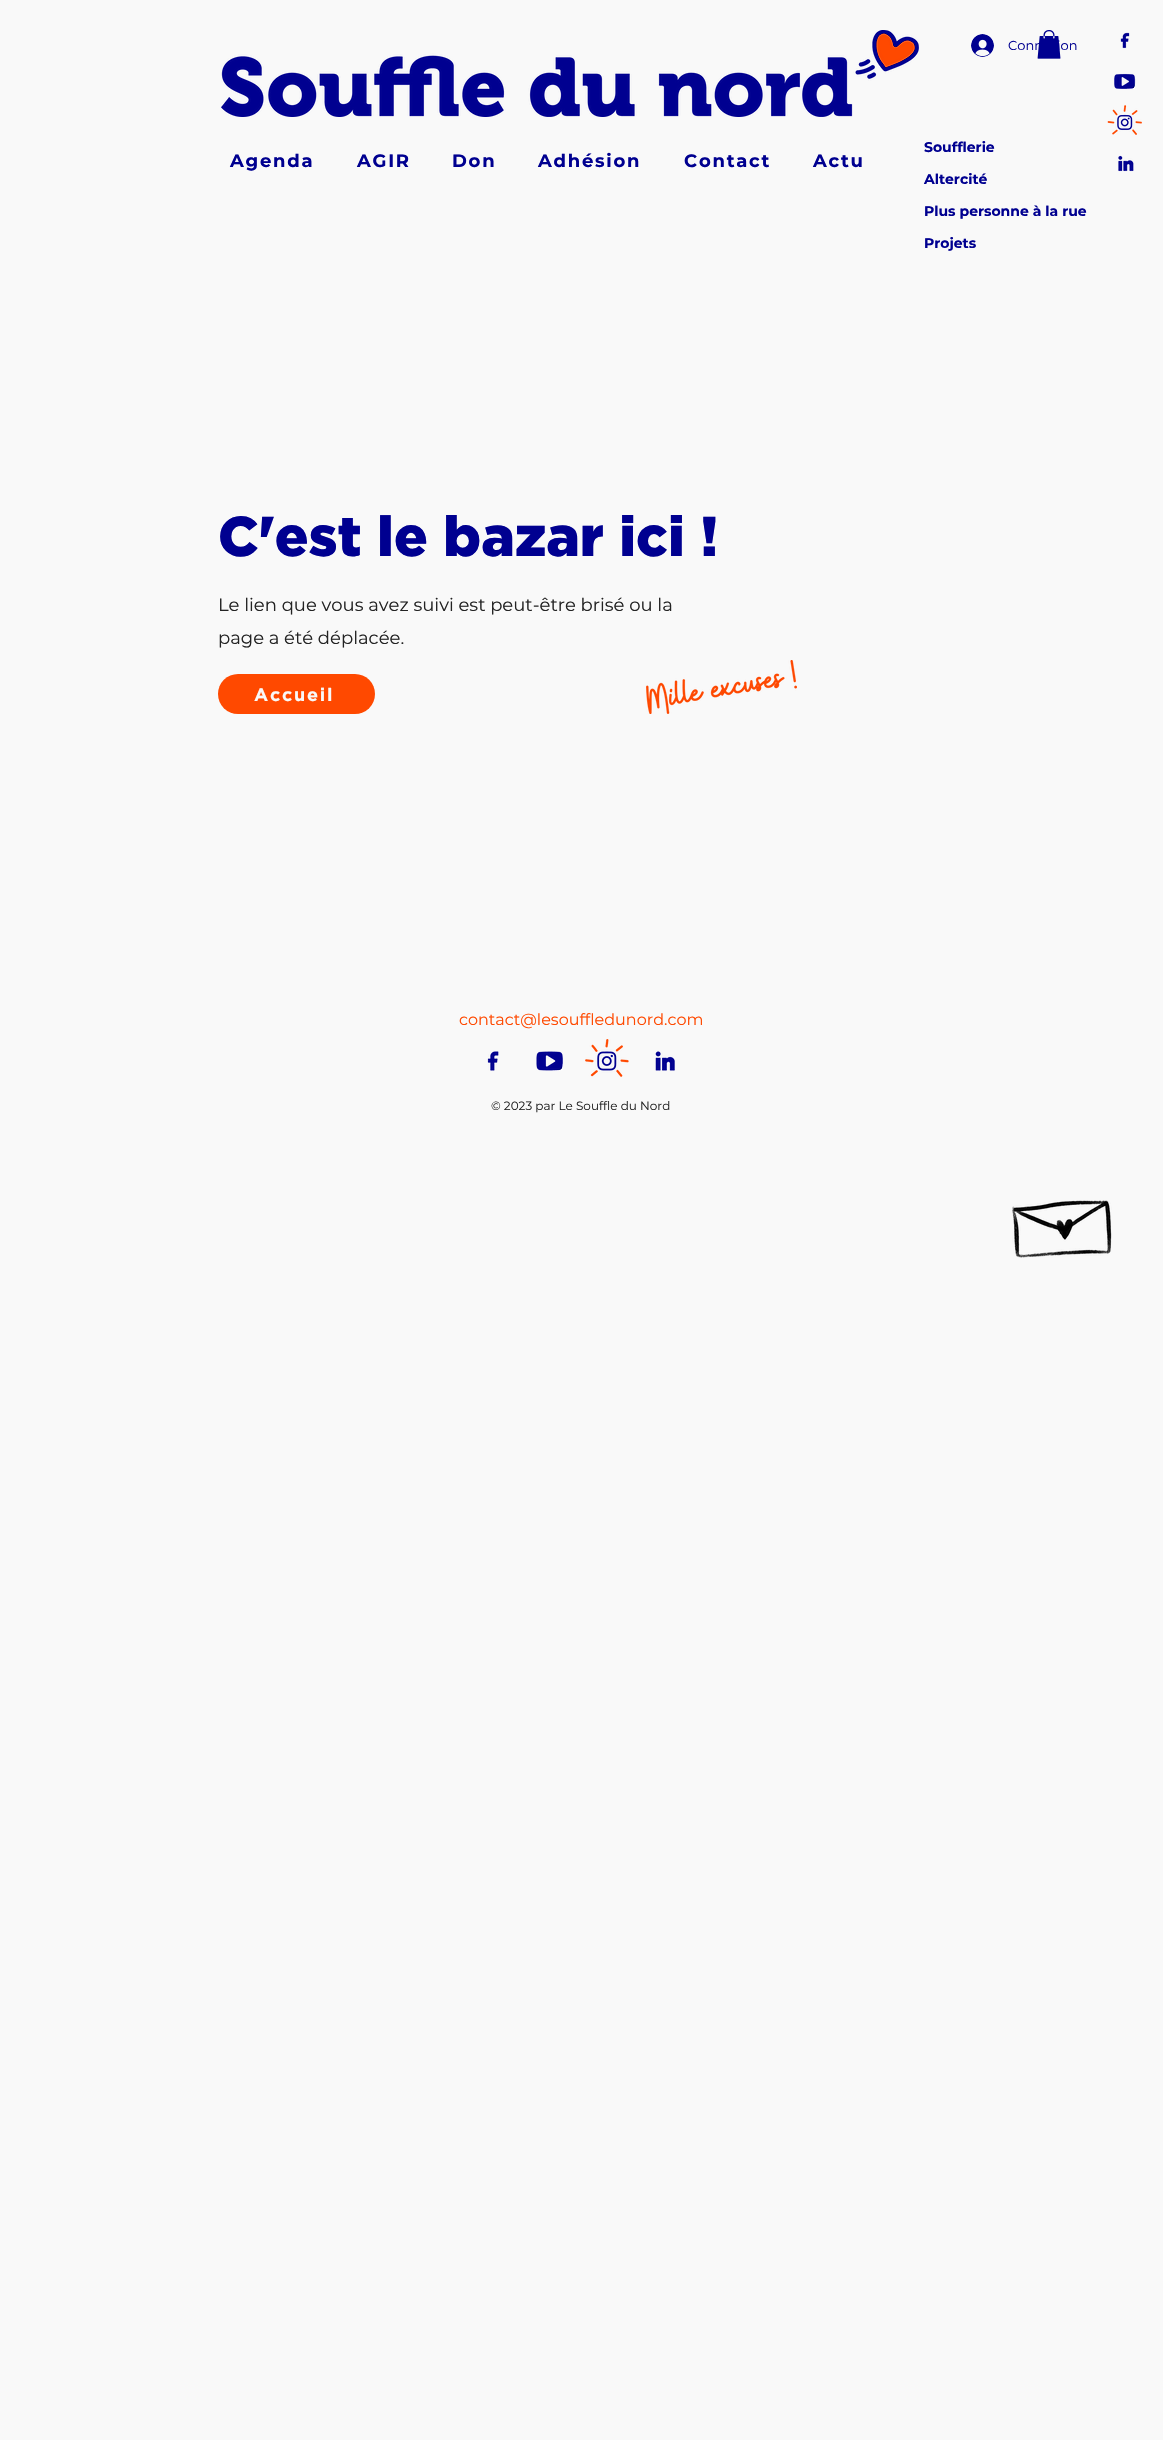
void draw(SkCanvas* canvas) {
    SkPaint paint;
    paint.setAntiAlias(true);
    auto face = [&](const char* family, int weight, float size, bool italic = false) {
        SkFontStyle style(weight, SkFontStyle::kNormal_Width,
            italic ? SkFontStyle::kItalic_Slant : SkFontStyle::kUpright_Slant);
        SkFont result(fontMgr->matchFamilyStyle(family, style), size);
        result.setSubpixel(true);
        return result;
    };
    auto write = [&](const char* s, float x, float y, const SkFont& font, SkColor color) {
        SkPaint ink(SkColor4f::FromColor(color));
        ink.setAntiAlias(true);
        canvas->drawString(s, x, y, font, ink);
    };
    auto writeSpaced = [&](const char* s, float x, float y, const SkFont& font, const SkPaint& ink, float letter, float word) {
        std::vector<SkGlyphID> glyphs(font.countText(s, strlen(s), SkTextEncoding::kUTF8));
        std::vector<float> xs(glyphs.size());
        font.textToGlyphs(s, strlen(s), SkTextEncoding::kUTF8, glyphs);
        font.getXPos(glyphs, xs, x);
        float extra = 0;
        for (size_t i = 0; i < glyphs.size(); i++) {
            xs[i] += extra;
            extra += letter + word * (glyphs[i] == font.unicharToGlyph(' '));
        }
        canvas->drawTextBlob(SkTextBlob::MakeFromPosHGlyphs(glyphs, xs, y, font), 0, 0, ink);
    };
    auto card = [&](float x, float y, float w, float h, float radius, SkColor color) {
        SkPaint ink(SkColor4f::FromColor(color));
        ink.setAntiAlias(true);
        canvas->drawRoundRect(SkRect::MakeXYWH(x, y, w, h), radius, radius, ink);
    };
    auto paste = [&](const char* path, float x, float y, float w, float h) {
        auto image = SkImages::DeferredFromEncodedData(SkData::MakeFromFileName(path));
        canvas->drawImageRect(image, SkRect::MakeXYWH(x, y, w, h), SkSamplingOptions());
    };
    canvas->clear(SkColorSetRGB(249, 249, 249));
    paste("pic1.png", 221, 30, 698, 87);
    auto kFont1 = face("Montserrat", 400, 13);
    write("Conn", 1008, 50, kFont1, SkColorSetRGB(0, 0, 144));
    write("ion", 1057, 50, kFont1, SkColorSetRGB(0, 0, 144));
    paste("pic2.png", 1037, 30, 24, 29);
    paste("pic3.png", 971, 34, 23, 23);
    auto kFont2 = face("Montserrat", 700, 18);
    paint.setColor(SkColorSetRGB(0, 0, 144));
    writeSpaced("Agenda", 230, 167, kFont2, paint, 1.75f, 0);
    writeSpaced("AGIR", 357, 167, kFont2, paint, 1.75f, 0);
    writeSpaced("Don", 452, 167, kFont2, paint, 1.75f, 0);
    writeSpaced("Adhésion", 538, 167, kFont2, paint, 1.75f, 0);
    writeSpaced("Contact", 684, 167, kFont2, paint, 1.75f, 0);
    writeSpaced("Actu", 813, 167, kFont2, paint, 1.75f, 0);
    auto kFont3 = face("Montserrat", 700, 14);
    write("Soufflerie", 924, 152, kFont3, SkColorSetRGB(0, 0, 144));
    write("Altercité", 924, 184, kFont3, SkColorSetRGB(0, 0, 144));
    write("Plus personne à la rue", 924, 216, kFont3, SkColorSetRGB(0, 0, 144));
    write("Projets", 924, 248, kFont3, SkColorSetRGB(0, 0, 144));
    paste("pic4.png", 1120, 32, 10, 17);
    paste("pic5.png", 1114, 73, 22, 16);
    paste("pic6.png", 1107, 105, 35, 30);
    paste("pic7.png", 1118, 155, 16, 17);
    auto kFont4 = face("Gotham", 900, 56);
    write("C'est le bazar ici !", 218, 556, kFont4, SkColorSetRGB(0, 0, 144));
    auto kFont5 = face("Montserrat", 400, 18);
    write("Le lien que vous avez suivi est peut-être brisé ou la", 218, 611, kFont5, SkColorSetRGB(35, 35, 35));
    write("page a été déplacée.", 218, 644, kFont5, SkColorSetRGB(35, 35, 35));
    card(218, 674, 157, 40, 20, SkColorSetRGB(255, 73, 0));
    auto kFont6 = face("Gotham", 700, 18);
    paint.setColor(SkColorSetRGB(249, 249, 249));
    writeSpaced("Accueil", 254, 701, kFont6, paint, 1.75f, 0);
    paste("pic8.png", 646, 660, 151, 54);
    auto kFont7 = face("Montserrat", 400, 16);
    write("contact@lesouffledunord.com", 459, 1025, kFont7, SkColorSetRGB(255, 73, 0));
    paste("pic9.png", 487, 1051, 12, 20);
    paste("pic10.png", 536, 1051, 27, 20);
    paste("pic11.png", 585, 1039, 44, 38);
    paste("pic12.png", 655, 1051, 20, 20);
    auto kFont8 = face("Montserrat", 400, 12);
    write("© 2023 par Le Souffle du Nord", 491, 1110, kFont8, SkColorSetRGB(35, 35, 35));
    paste("pic13.png", 1012, 1200, 100, 58);
}
